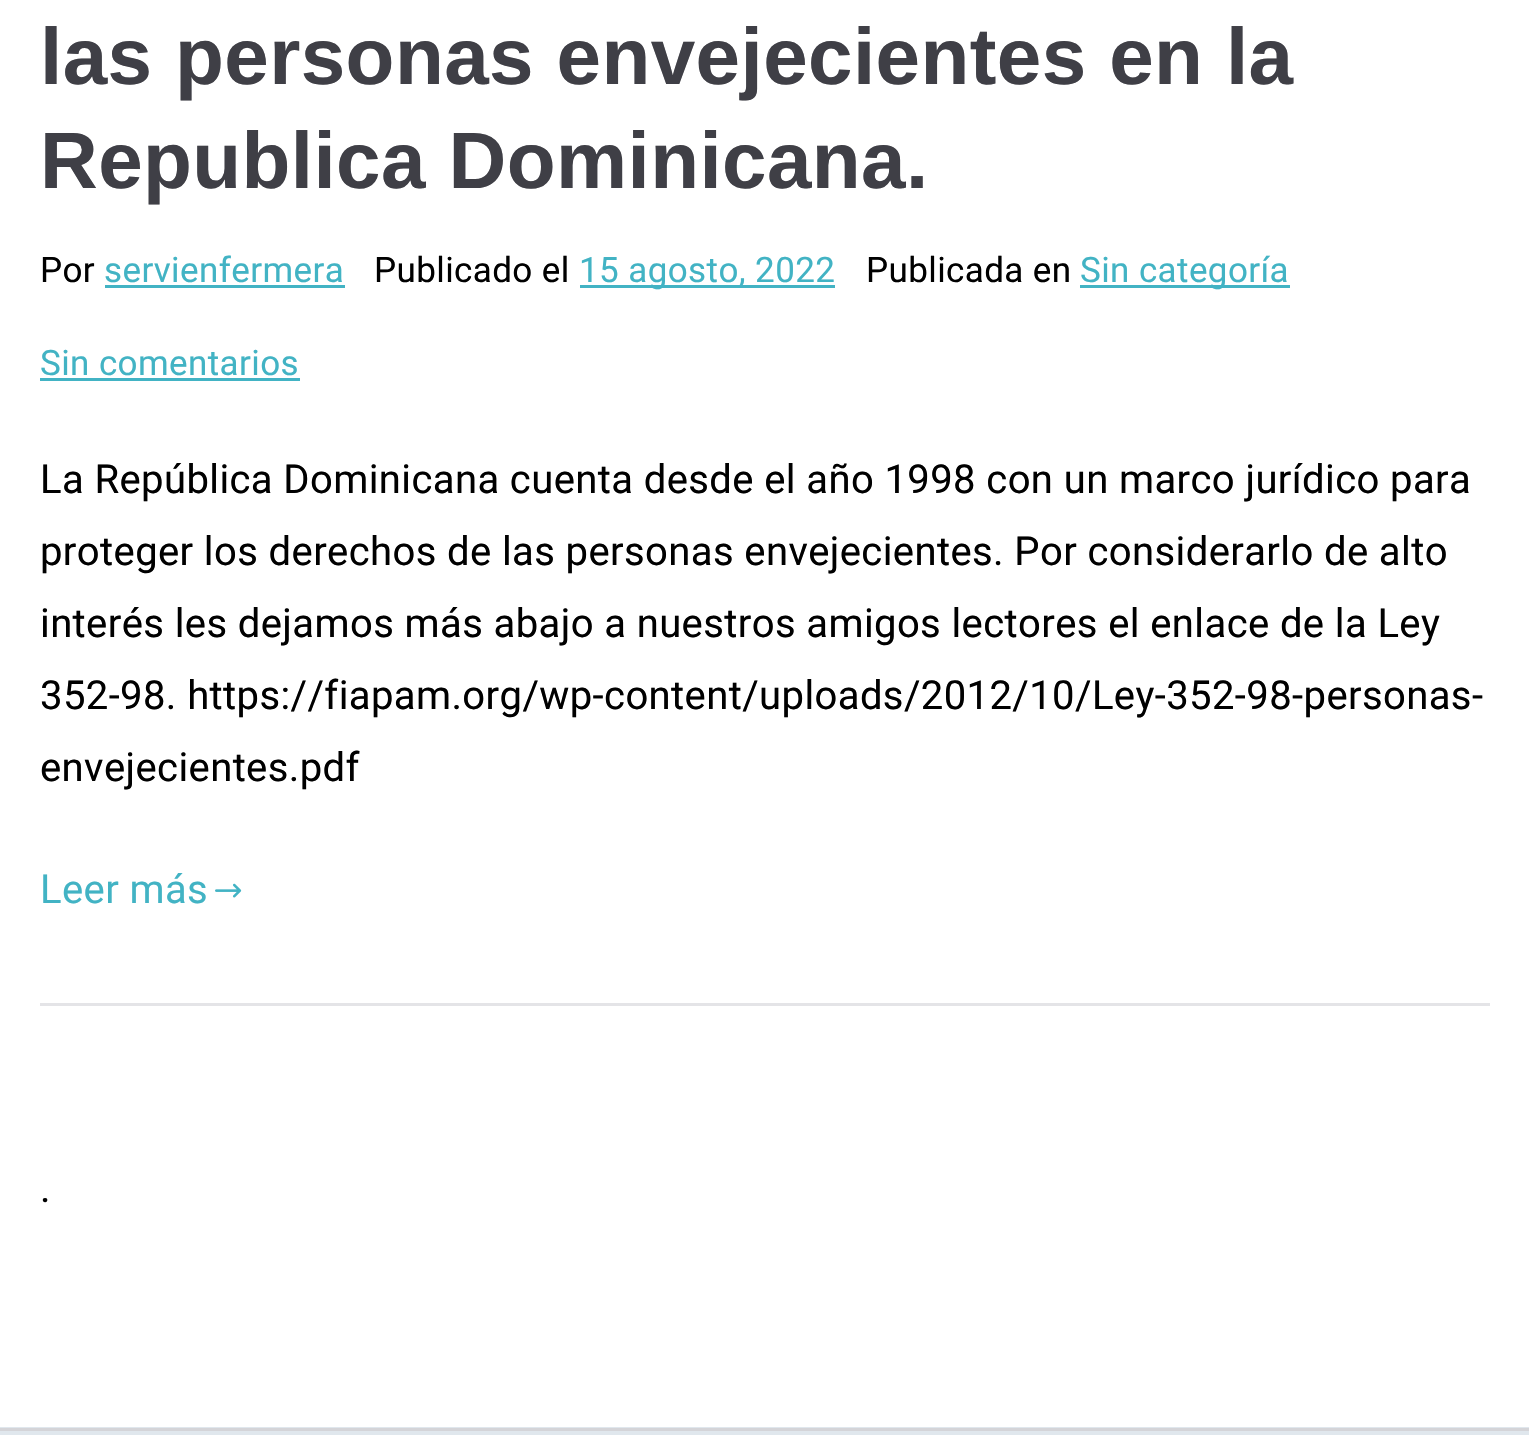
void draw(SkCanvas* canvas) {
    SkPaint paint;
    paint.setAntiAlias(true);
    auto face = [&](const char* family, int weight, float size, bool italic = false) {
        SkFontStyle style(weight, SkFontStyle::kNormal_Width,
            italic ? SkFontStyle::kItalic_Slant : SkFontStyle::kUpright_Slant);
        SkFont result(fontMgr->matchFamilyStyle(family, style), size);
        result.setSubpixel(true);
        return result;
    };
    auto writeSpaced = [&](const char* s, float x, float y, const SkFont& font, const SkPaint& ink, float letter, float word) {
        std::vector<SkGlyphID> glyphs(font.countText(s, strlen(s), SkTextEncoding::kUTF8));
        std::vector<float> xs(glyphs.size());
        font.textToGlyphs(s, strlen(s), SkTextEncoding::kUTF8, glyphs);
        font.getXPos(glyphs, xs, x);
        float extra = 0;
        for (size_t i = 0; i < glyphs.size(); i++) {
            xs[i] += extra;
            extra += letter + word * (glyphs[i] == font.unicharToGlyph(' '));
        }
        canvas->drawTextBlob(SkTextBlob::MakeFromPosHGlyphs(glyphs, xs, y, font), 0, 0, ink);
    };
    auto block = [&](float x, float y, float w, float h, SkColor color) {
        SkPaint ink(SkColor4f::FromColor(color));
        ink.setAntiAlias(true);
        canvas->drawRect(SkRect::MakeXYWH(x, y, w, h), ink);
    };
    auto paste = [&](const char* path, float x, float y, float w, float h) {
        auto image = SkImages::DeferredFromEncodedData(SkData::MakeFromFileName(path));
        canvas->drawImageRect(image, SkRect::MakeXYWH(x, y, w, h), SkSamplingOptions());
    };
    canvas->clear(SK_ColorWHITE);
    block(40, 1003, 1450, 3, SkColorSetRGB(228, 228, 231));
    auto kFont1 = face("Liberation Sans", 700, 80);
    paint.setColor(SkColorSetRGB(63, 63, 70));
    writeSpaced("las personas envejecientes en la", 40, 84, kFont1, paint, 0.4f, 0);
    writeSpaced("Republica Dominicana.", 40, 188, kFont1, paint, 0.4f, 0);
    auto kFont2 = face("Roboto", 400, 35);
    paint.setColor(SK_ColorBLACK);
    writeSpaced("Por", 40, 282, kFont2, paint, 0.4f, 0);
    paint.setColor(SkColorSetRGB(66, 179, 196));
    writeSpaced("servienfermera", 104, 282, kFont2, paint, 0.4f, 0);
    block(105, 285, 240, 3, SkColorSetRGB(66, 179, 196));
    paint.setColor(SK_ColorBLACK);
    writeSpaced("Publicado el", 374, 282, kFont2, paint, 0.4f, 0);
    block(580, 285, 255, 3, SkColorSetRGB(66, 179, 196));
    paint.setColor(SkColorSetRGB(66, 179, 196));
    writeSpaced("15 agosto, 2022", 579, 282, kFont2, paint, 0.4f, 0);
    paint.setColor(SK_ColorBLACK);
    writeSpaced("Publicada en", 866, 282, kFont2, paint, 0.4f, 0);
    block(1080, 285, 210, 3, SkColorSetRGB(66, 179, 196));
    paint.setColor(SkColorSetRGB(66, 179, 196));
    writeSpaced("Sin categoría", 1080, 282, kFont2, paint, 0.4f, 0);
    writeSpaced("Sin comentarios", 40, 375, kFont2, paint, 0.4f, 0);
    block(40, 378, 260, 3, SkColorSetRGB(66, 179, 196));
    auto kFont3 = face("Roboto", 400, 40);
    paint.setColor(SK_ColorBLACK);
    writeSpaced("La República Dominicana cuenta desde el año 1998 con un marco jurídico para", 40, 493, kFont3, paint, 0.4f, 0);
    writeSpaced("proteger los derechos de las personas envejecientes. Por considerarlo de alto", 40, 565, kFont3, paint, 0.4f, 0);
    writeSpaced("interés les dejamos más abajo a nuestros amigos lectores el enlace de la Ley", 40, 637, kFont3, paint, 0.4f, 0);
    writeSpaced("352-98. https://fiapam.org/wp-content/uploads/2012/10/Ley-352-98-personas-", 40, 709, kFont3, paint, 0.4f, 0);
    writeSpaced("envejecientes.pdf", 40, 781, kFont3, paint, 0.4f, 0);
    paint.setColor(SkColorSetRGB(66, 179, 196));
    writeSpaced("Leer más", 40, 903, kFont3, paint, 0.4f, 0);
    paste("pic1.png", 215, 883, 27, 15);
    paint.setColor(SK_ColorBLACK);
    writeSpaced(".", 40, 1202, kFont3, paint, 0.4f, 0);
    block(0, 1427, 1529, 8, SkColorSetRGB(224, 231, 237));
    block(0, 1428, 1529, 3, SkColorSetRGB(212, 212, 216));
}
